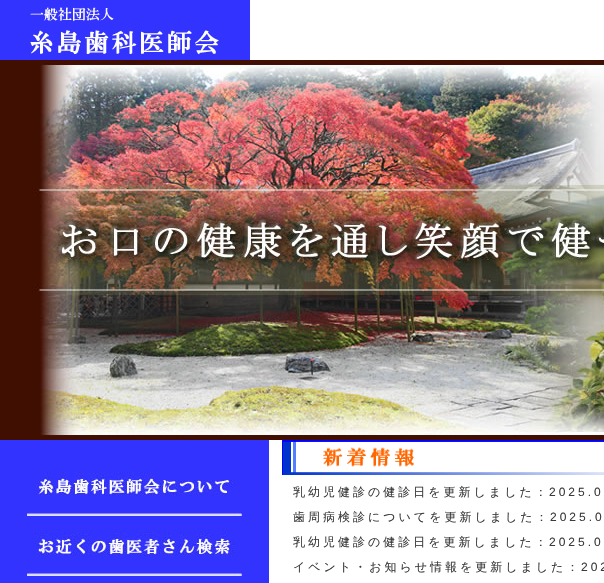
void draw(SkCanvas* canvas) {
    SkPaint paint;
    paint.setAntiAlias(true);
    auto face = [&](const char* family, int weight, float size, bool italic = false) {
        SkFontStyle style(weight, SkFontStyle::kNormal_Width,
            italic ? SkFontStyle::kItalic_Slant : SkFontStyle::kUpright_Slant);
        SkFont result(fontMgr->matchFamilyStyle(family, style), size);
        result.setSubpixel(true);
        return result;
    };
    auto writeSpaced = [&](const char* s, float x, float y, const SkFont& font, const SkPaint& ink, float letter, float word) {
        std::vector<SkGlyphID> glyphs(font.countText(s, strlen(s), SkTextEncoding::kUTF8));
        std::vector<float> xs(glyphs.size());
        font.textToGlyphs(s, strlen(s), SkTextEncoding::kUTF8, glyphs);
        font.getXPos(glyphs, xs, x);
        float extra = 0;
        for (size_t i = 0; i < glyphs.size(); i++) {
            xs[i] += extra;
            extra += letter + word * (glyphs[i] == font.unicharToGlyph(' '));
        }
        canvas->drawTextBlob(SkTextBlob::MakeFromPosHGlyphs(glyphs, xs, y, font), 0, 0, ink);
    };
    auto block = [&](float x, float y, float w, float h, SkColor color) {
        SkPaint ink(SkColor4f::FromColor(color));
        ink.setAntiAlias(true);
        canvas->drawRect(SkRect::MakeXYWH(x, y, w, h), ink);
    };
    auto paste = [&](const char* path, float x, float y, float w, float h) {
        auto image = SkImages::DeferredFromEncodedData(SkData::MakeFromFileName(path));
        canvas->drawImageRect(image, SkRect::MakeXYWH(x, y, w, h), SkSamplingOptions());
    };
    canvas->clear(SkColorSetRGB(50, 51, 255));
    paste("pic1.png", 25, 0, 199, 56);
    block(250, 0, 354, 60, SK_ColorWHITE);
    block(0, 60, 604, 380, SkColorSetRGB(65, 15, 2));
    paste("pic2.png", 32, 60, 572, 376);
    paste("pic3.png", 27, 472, 215, 44);
    paste("pic4.png", 27, 532, 215, 44);
    block(269, 440, 335, 143, SK_ColorWHITE);
    paste("pic5.png", 282, 440, 322, 35);
    auto kFont1 = face("WenQuanYi Zen Hei", 500, 12);
    paint.setColor(SkColorSetRGB(59, 59, 59));
    writeSpaced("乳幼児健診の健診日を更新しました：", 293, 496, kFont1, paint, 3, 0);
    auto kFont2 = face("Liberation Sans", 400, 12);
    writeSpaced("2025.0", 549, 496, kFont2, paint, 3, 0);
    writeSpaced("歯周病検診についてを更新しました：", 293, 521, kFont1, paint, 3, 0);
    writeSpaced("2025.0", 550, 521, kFont2, paint, 3, 0);
    writeSpaced("乳幼児健診の健診日を更新しました：", 293, 546, kFont1, paint, 3, 0);
    writeSpaced("2025.0", 549, 546, kFont2, paint, 3, 0);
    writeSpaced("イベント・お知らせ情報を更新しました：", 293, 571, kFont1, paint, 3, 0);
    writeSpaced("202", 581, 571, kFont2, paint, 3, 0);
}
